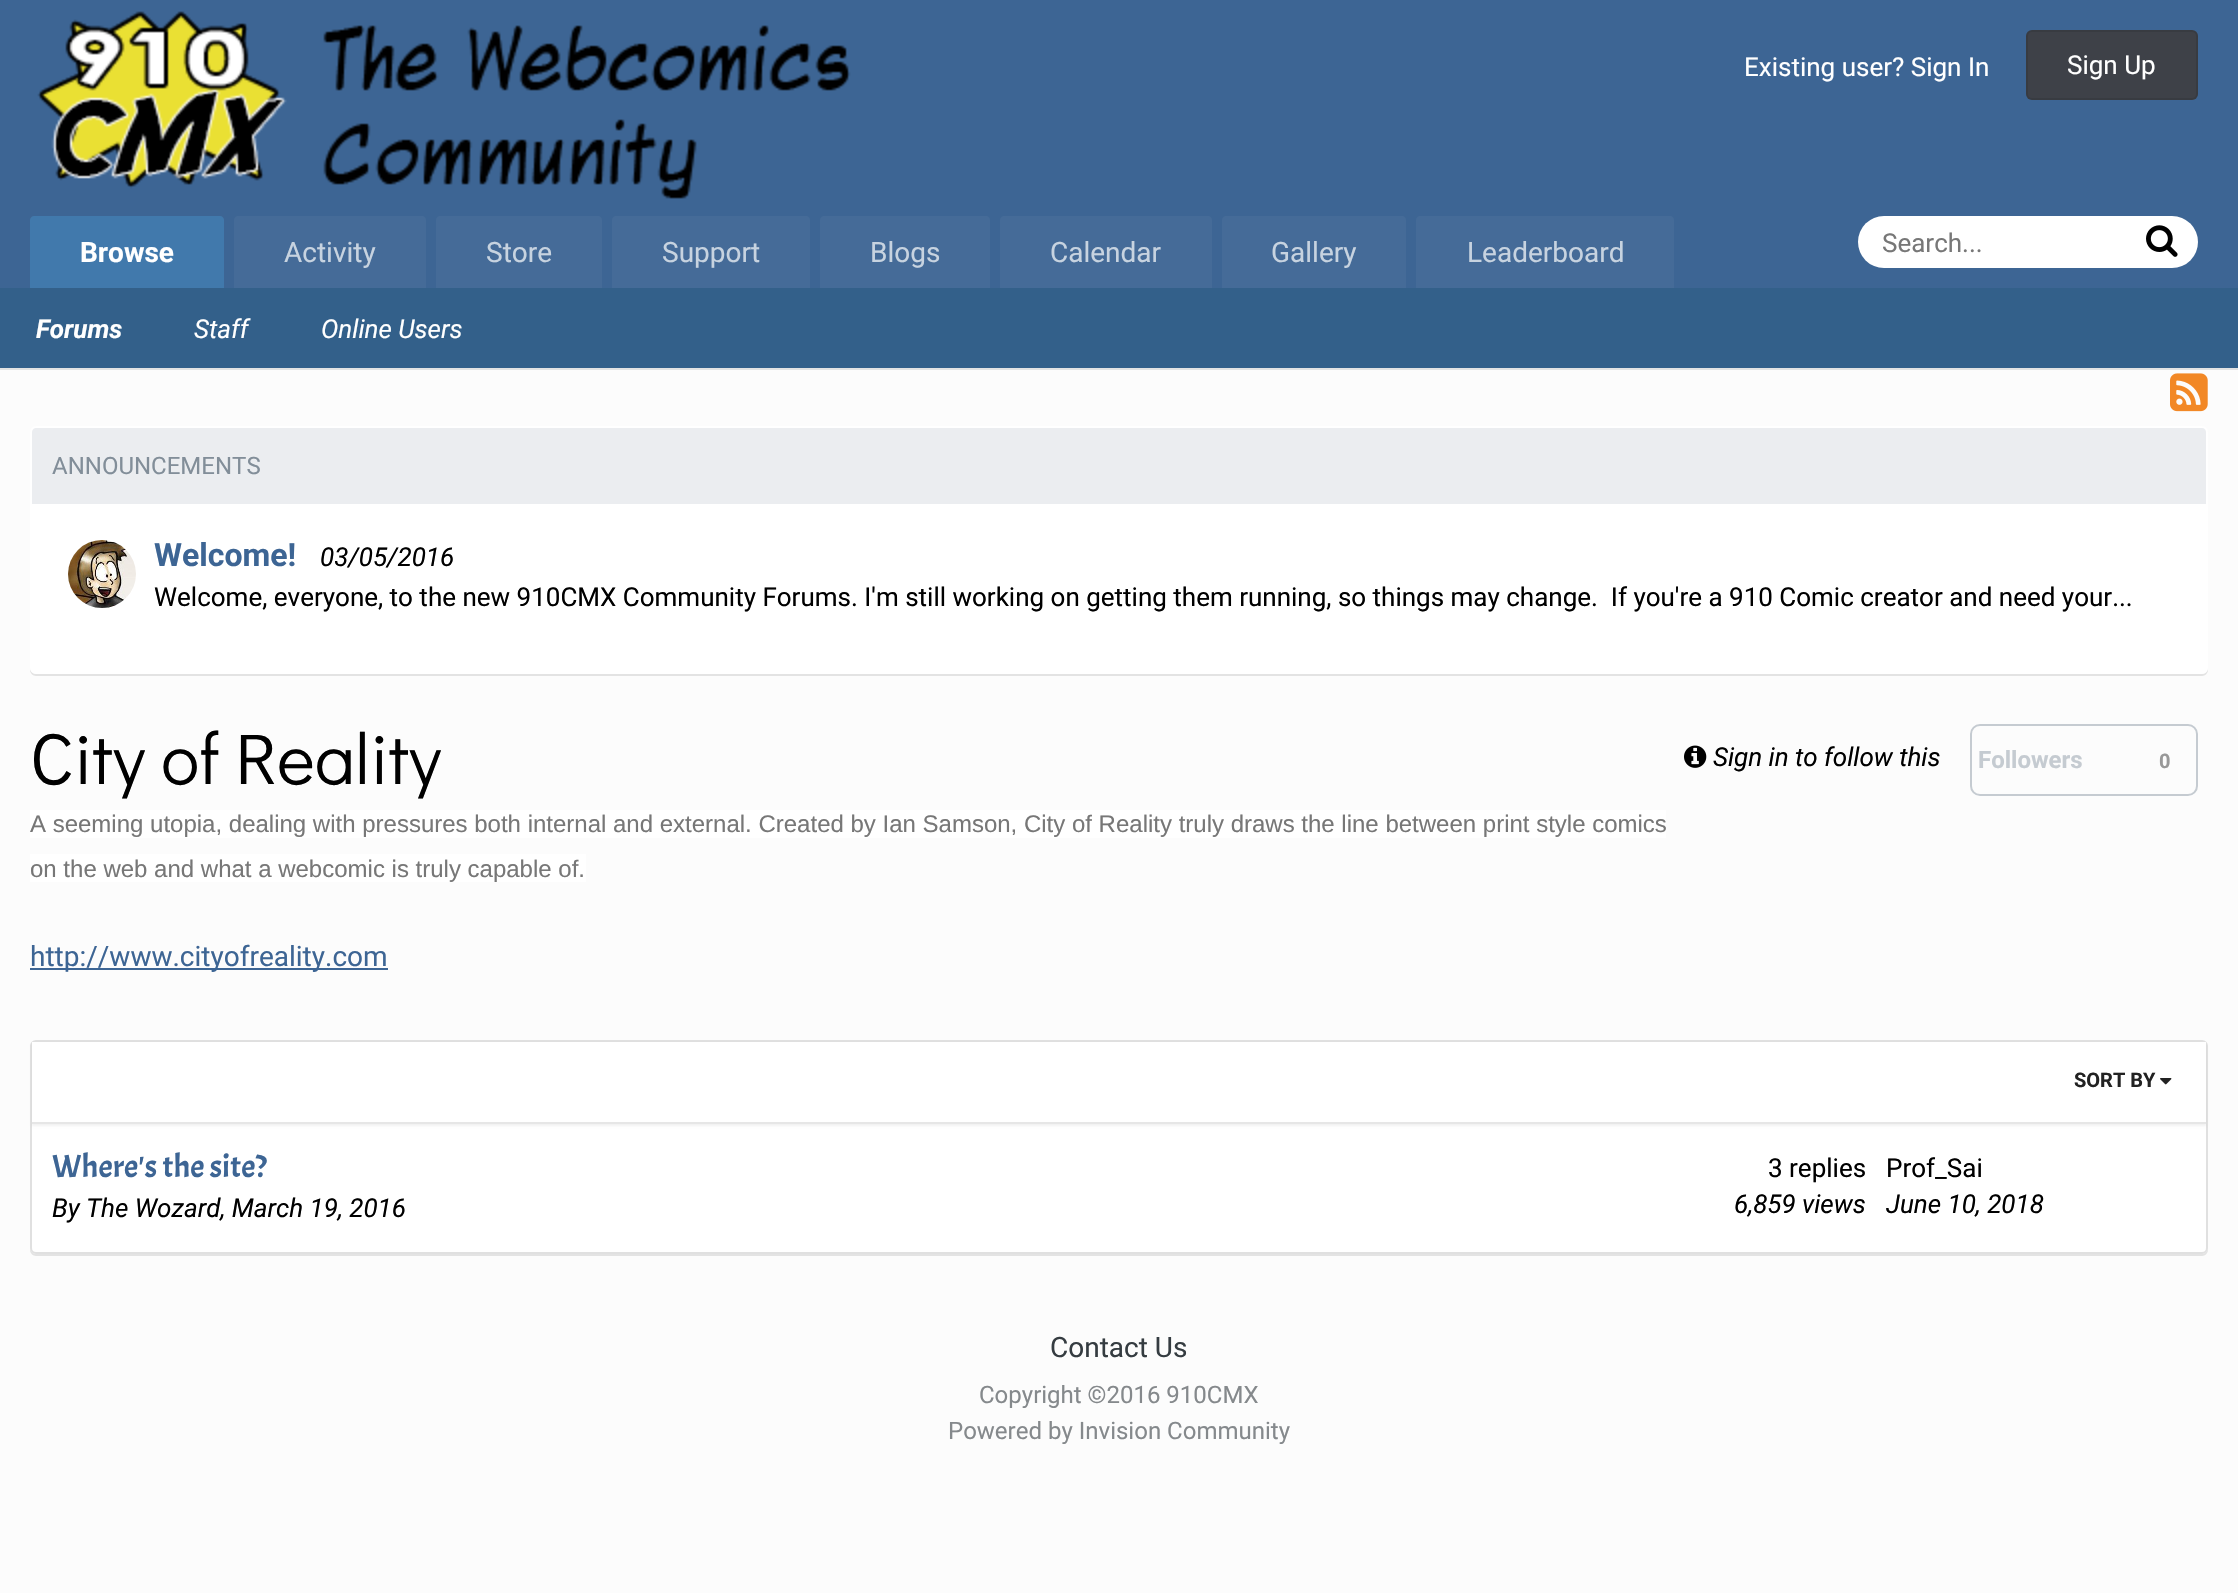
void draw(SkCanvas* canvas) {
    SkPaint paint;
    paint.setAntiAlias(true);
    auto face = [&](const char* family, int weight, float size, bool italic = false) {
        SkFontStyle style(weight, SkFontStyle::kNormal_Width,
            italic ? SkFontStyle::kItalic_Slant : SkFontStyle::kUpright_Slant);
        SkFont result(fontMgr->matchFamilyStyle(family, style), size);
        result.setSubpixel(true);
        return result;
    };
    auto write = [&](const char* s, float x, float y, const SkFont& font, SkColor color) {
        SkPaint ink(SkColor4f::FromColor(color));
        ink.setAntiAlias(true);
        canvas->drawString(s, x, y, font, ink);
    };
    auto block = [&](float x, float y, float w, float h, SkColor color) {
        SkPaint ink(SkColor4f::FromColor(color));
        ink.setAntiAlias(true);
        canvas->drawRect(SkRect::MakeXYWH(x, y, w, h), ink);
    };
    auto card = [&](float x, float y, float w, float h, float radius, SkColor color) {
        SkPaint ink(SkColor4f::FromColor(color));
        ink.setAntiAlias(true);
        canvas->drawRoundRect(SkRect::MakeXYWH(x, y, w, h), radius, radius, ink);
    };
    auto paste = [&](const char* path, float x, float y, float w, float h) {
        auto image = SkImages::DeferredFromEncodedData(SkData::MakeFromFileName(path));
        canvas->drawImageRect(image, SkRect::MakeXYWH(x, y, w, h), SkSamplingOptions());
    };
    canvas->clear(SkColorSetRGB(252, 252, 252));
    block(0, 368, 2238, 2, SkColorSetRGB(227, 227, 227));
    block(0, 0, 2238, 288, SkColorSetRGB(61, 101, 148));
    paste("pic1.png", 37, 11, 814, 188);
    auto kFont1 = face("Roboto", 400, 26);
    write("Existing user? Sign In", 1744, 76, kFont1, SK_ColorWHITE);
    card(2026, 30, 172, 70, 6, SkColorSetRGB(62, 65, 72));
    paint.setStyle(SkPaint::kStroke_Style);
    paint.setStrokeWidth(2);
    paint.setColor(SkColorSetARGB(26, 0, 0, 0));
    canvas->drawRoundRect(SkRect::MakeXYWH(2027, 31, 170, 68), 5, 5, paint);
    write("Sign Up", 2067, 74, kFont1, SK_ColorWHITE);
    paint.setStyle(SkPaint::kFill_Style);
    paint.setColor(SkColorSetRGB(69, 107, 152));
    canvas->drawPath(SkPathBuilder().moveTo(238, 216).lineTo(422, 216).cubicTo(424, 216, 426, 218, 426, 220).lineTo(426, 288).lineTo(234, 288).lineTo(234, 220).cubicTo(234, 218, 236, 216, 238, 216).close().detach(), paint);
    auto kFont2 = face("Roboto", 400, 28);
    write("Activity", 284, 262, kFont2, SkColorSetRGB(199, 211, 224));
    canvas->drawPath(SkPathBuilder().moveTo(440, 216).lineTo(598, 216).cubicTo(600, 216, 602, 218, 602, 220).lineTo(602, 288).lineTo(436, 288).lineTo(436, 220).cubicTo(436, 218, 438, 216, 440, 216).close().detach(), paint);
    write("Store", 486, 262, kFont2, SkColorSetRGB(199, 211, 224));
    canvas->drawPath(SkPathBuilder().moveTo(616, 216).lineTo(806, 216).cubicTo(808, 216, 810, 218, 810, 220).lineTo(810, 288).lineTo(612, 288).lineTo(612, 220).cubicTo(612, 218, 614, 216, 616, 216).close().detach(), paint);
    write("Support", 662, 262, kFont2, SkColorSetRGB(199, 211, 224));
    canvas->drawPath(SkPathBuilder().moveTo(824, 216).lineTo(986, 216).cubicTo(988, 216, 990, 218, 990, 220).lineTo(990, 288).lineTo(820, 288).lineTo(820, 220).cubicTo(820, 218, 822, 216, 824, 216).close().detach(), paint);
    write("Blogs", 870, 262, kFont2, SkColorSetRGB(199, 211, 224));
    canvas->drawPath(SkPathBuilder().moveTo(1004, 216).lineTo(1208, 216).cubicTo(1210, 216, 1212, 218, 1212, 220).lineTo(1212, 288).lineTo(1000, 288).lineTo(1000, 220).cubicTo(1000, 218, 1002, 216, 1004, 216).close().detach(), paint);
    write("Calendar", 1050, 262, kFont2, SkColorSetRGB(199, 211, 224));
    canvas->drawPath(SkPathBuilder().moveTo(1226, 216).lineTo(1402, 216).cubicTo(1404, 216, 1406, 218, 1406, 220).lineTo(1406, 288).lineTo(1222, 288).lineTo(1222, 220).cubicTo(1222, 218, 1224, 216, 1226, 216).close().detach(), paint);
    write("Gallery", 1271, 262, kFont2, SkColorSetRGB(199, 211, 224));
    canvas->drawPath(SkPathBuilder().moveTo(1420, 216).lineTo(1670, 216).cubicTo(1672, 216, 1674, 218, 1674, 220).lineTo(1674, 288).lineTo(1416, 288).lineTo(1416, 220).cubicTo(1416, 218, 1418, 216, 1420, 216).close().detach(), paint);
    write("Leaderboard", 1467, 262, kFont2, SkColorSetRGB(199, 211, 224));
    paint.setColor(SkColorSetRGB(65, 121, 172));
    canvas->drawPath(SkPathBuilder().moveTo(34, 216).lineTo(220, 216).cubicTo(222, 216, 224, 218, 224, 220).lineTo(224, 288).lineTo(30, 288).lineTo(30, 220).cubicTo(30, 218, 32, 216, 34, 216).close().detach(), paint);
    auto kFont3 = face("Roboto", 700, 28);
    write("Browse", 80, 262, kFont3, SK_ColorWHITE);
    block(0, 288, 2238, 80, SkColorSetRGB(51, 96, 138));
    auto kFont4 = face("Roboto", 700, 26, true);
    write("Forums", 36, 338, kFont4, SK_ColorWHITE);
    auto kFont5 = face("Roboto", 400, 26, true);
    write("Staff", 194, 338, kFont5, SK_ColorWHITE);
    write("Online Users", 321, 338, kFont5, SK_ColorWHITE);
    card(1858, 216, 340, 52, 26, SK_ColorWHITE);
    write("Search...", 1882, 252, kFont1, SkColorSetRGB(119, 119, 119));
    paste("pic2.png", 2146, 225, 32, 32);
    paste("pic3.png", 2170, 373, 38, 39);
    paint.setColor(SkColorSetRGB(227, 227, 227));
    canvas->drawPath(SkPathBuilder().moveTo(30, 668).lineTo(30, 670).cubicTo(30, 673, 33, 676, 36, 676).lineTo(2202, 676).cubicTo(2205, 676, 2208, 673, 2208, 670).lineTo(2208, 668).cubicTo(2208, 671, 2205, 674, 2202, 674).lineTo(36, 674).cubicTo(33, 674, 30, 671, 30, 668).close().detach(), paint);
    paint.setColor(SK_ColorWHITE);
    canvas->drawRoundRect(SkRect::MakeXYWH(31, 427, 2176, 246), 5, 5, paint);
    paint.setStyle(SkPaint::kStroke_Style);
    canvas->drawRoundRect(SkRect::MakeXYWH(31, 427, 2176, 246), 5, 5, paint);
    paint.setStyle(SkPaint::kFill_Style);
    paint.setColor(SkColorSetRGB(235, 237, 240));
    canvas->drawPath(SkPathBuilder().moveTo(36, 428).lineTo(2202, 428).cubicTo(2204, 428, 2206, 430, 2206, 432).lineTo(2206, 504).lineTo(32, 504).lineTo(32, 432).cubicTo(32, 430, 34, 428, 36, 428).close().detach(), paint);
    auto kFont6 = face("Roboto", 400, 24);
    write("ANNOUNCEMENTS", 52, 474, kFont6, SkColorSetRGB(130, 142, 153));
    paste("pic4.png", 68, 540, 68, 68);
    auto kFont7 = face("Roboto", 700, 32);
    write("Welcome!", 154, 566, kFont7, SkColorSetRGB(61, 101, 148));
    write("03/05/2016", 320, 566, kFont5, SK_ColorBLACK);
    write("Welcome, everyone, to the new 910CMX Community Forums. I'm still working on getting them running, so things may change.  If you're a 910 Comic creator and need your...", 154, 606, kFont1, SK_ColorBLACK);
    auto kFont8 = face("Didact Gothic", 400, 72);
    write("City of Reality", 30, 784, kFont8, SK_ColorBLACK);
    paste("pic5.png", 1684, 745, 23, 23);
    write("Sign in to follow this", 1713, 766, kFont5, SK_ColorBLACK);
    paint.setStyle(SkPaint::kStroke_Style);
    paint.setColor(SkColorSetRGB(197, 203, 209));
    canvas->drawRoundRect(SkRect::MakeXYWH(1971, 725, 226, 70), 9, 9, paint);
    auto kFont9 = face("Roboto", 700, 24);
    write("Followers", 1978, 768, kFont9, SkColorSetRGB(197, 203, 209));
    auto kFont10 = face("Roboto", 700, 20);
    write("0", 2159, 768, kFont10, SkColorSetRGB(152, 152, 152));
    block(30, 810, 1636, 28, SK_ColorWHITE);
    auto kFont11 = face("Liberation Sans", 400, 24);
    write("A seeming utopia, dealing with pressures both internal and external. Created by Ian Samson, City of Reality truly draws the line between print style comics", 30, 832, kFont11, SkColorSetRGB(119, 119, 119));
    block(30, 854, 556, 28, SK_ColorWHITE);
    write("on the web and what a webcomic is truly capable of.", 30, 877, kFont11, SkColorSetRGB(119, 119, 119));
    block(30, 968, 358, 2, SkColorSetRGB(61, 101, 148));
    write("http://www.cityofreality.com", 30, 966, kFont2, SkColorSetRGB(61, 101, 148));
    paint.setStyle(SkPaint::kFill_Style);
    paint.setColor(SkColorSetRGB(227, 227, 227));
    canvas->drawPath(SkPathBuilder().moveTo(30, 1248).lineTo(30, 1250).cubicTo(30, 1253, 33, 1256, 36, 1256).lineTo(2202, 1256).cubicTo(2205, 1256, 2208, 1253, 2208, 1250).lineTo(2208, 1248).cubicTo(2208, 1251, 2205, 1254, 2202, 1254).lineTo(36, 1254).cubicTo(33, 1254, 30, 1251, 30, 1248).close().detach(), paint);
    paint.setColor(SK_ColorWHITE);
    canvas->drawRoundRect(SkRect::MakeXYWH(31, 1041, 2176, 212), 5, 5, paint);
    paint.setStyle(SkPaint::kStroke_Style);
    paint.setColor(SkColorSetRGB(224, 224, 224));
    canvas->drawRoundRect(SkRect::MakeXYWH(31, 1041, 2176, 212), 5, 5, paint);
    paint.setStyle(SkPaint::kFill_Style);
    paint.setColor(SkColorSetARGB(13, 0, 0, 0));
    paint.setMaskFilter(SkMaskFilter::MakeBlur(kNormal_SkBlurStyle, 1));
    canvas->drawRect(SkRect::MakeXYWH(32, 1044, 2174, 82), paint);
    paint.setMaskFilter(nullptr);
    block(32, 1042, 2174, 80, SK_ColorWHITE);
    block(32, 1122, 2174, 2, SkColorSetRGB(230, 230, 230));
    write("SORT BY", 2074, 1087, kFont10, SkColorSetRGB(34, 34, 34));
    paste("pic6.png", 2160, 1078, 12, 7);
    auto kFont12 = face("Acme", 400, 32);
    write("Where's the site?", 52, 1177, kFont12, SkColorSetRGB(61, 101, 148));
    write("By The Wozard, March 19, 2016", 52, 1217, kFont5, SK_ColorBLACK);
    write("3 replies", 1768, 1177, kFont1, SK_ColorBLACK);
    write("6,859 views", 1734, 1213, kFont5, SK_ColorBLACK);
    write("Prof_Sai", 1886, 1177, kFont1, SK_ColorBLACK);
    write("June 10, 2018", 1886, 1213, kFont5, SK_ColorBLACK);
    write("Contact Us", 1050, 1357, kFont2, SkColorSetRGB(53, 60, 65));
    write("Copyright ©2016 910CMX", 979, 1403, kFont6, SkColorSetRGB(133, 137, 140));
    write("Powered by Invision Community", 948, 1439, kFont6, SkColorSetRGB(133, 137, 140));
}
